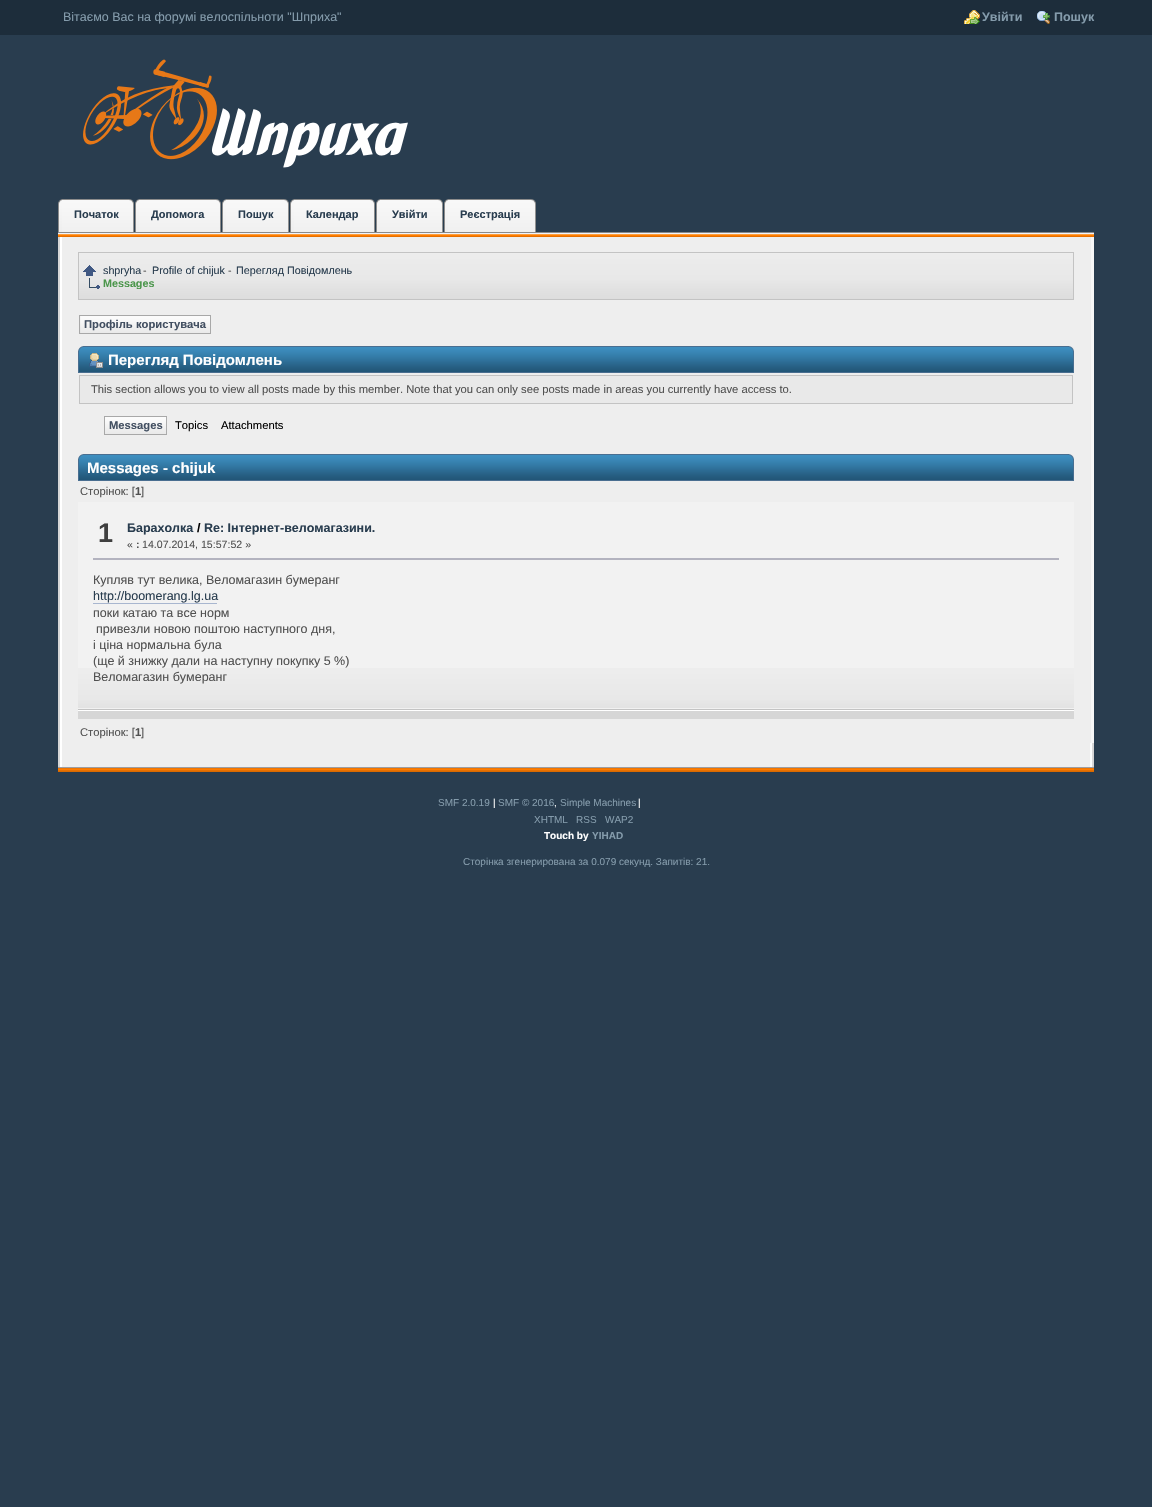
void draw(SkCanvas* canvas) {
    SkPaint paint;
    paint.setAntiAlias(true);
    auto face = [&](const char* family, int weight, float size, bool italic = false) {
        SkFontStyle style(weight, SkFontStyle::kNormal_Width,
            italic ? SkFontStyle::kItalic_Slant : SkFontStyle::kUpright_Slant);
        SkFont result(fontMgr->matchFamilyStyle(family, style), size);
        result.setSubpixel(true);
        return result;
    };
    auto write = [&](const char* s, float x, float y, const SkFont& font, SkColor color) {
        SkPaint ink(SkColor4f::FromColor(color));
        ink.setAntiAlias(true);
        canvas->drawString(s, x, y, font, ink);
    };
    auto block = [&](float x, float y, float w, float h, SkColor color) {
        SkPaint ink(SkColor4f::FromColor(color));
        ink.setAntiAlias(true);
        canvas->drawRect(SkRect::MakeXYWH(x, y, w, h), ink);
    };
    auto paste = [&](const char* path, float x, float y, float w, float h) {
        auto image = SkImages::DeferredFromEncodedData(SkData::MakeFromFileName(path));
        canvas->drawImageRect(image, SkRect::MakeXYWH(x, y, w, h), SkSamplingOptions());
    };
    canvas->clear(SkColorSetRGB(41, 61, 79));
    block(0, 0, 1152, 35, SkColorSetRGB(29, 45, 59));
    auto kFont1 = face("Liberation Sans", 400, 12.5f);
    write("Вітаємо Вас на форумі велоспільноти \"Шприха\"", 63, 21, kFont1, SkColorSetRGB(132, 155, 171));
    paste("pic1.png", 964, 10, 16, 14);
    auto kFont2 = face("Liberation Sans", 700, 12.5f);
    write("Увійти", 982, 21, kFont2, SkColorSetRGB(132, 155, 171));
    paste("pic2.png", 1037, 11, 13, 13);
    write("Пошук", 1054, 21, kFont2, SkColorSetRGB(132, 155, 171));
    paste("pic3.png", 83, 59, 325, 109);
    paste("pic4.png", 58, 232, 1036, 5);
    paste("pic5.png", 58, 199, 4, 33);
    paste("pic6.png", 62, 199, 72, 33);
    auto kFont3 = face("Liberation Sans", 700, 11);
    write("Початок", 74, 218, kFont3, SkColorSetRGB(41, 61, 79));
    paste("pic5.png", 135, 199, 4, 33);
    paste("pic7.png", 139, 199, 82, 33);
    write("Допомога", 151, 218, kFont3, SkColorSetRGB(41, 61, 79));
    paste("pic5.png", 222, 199, 4, 33);
    paste("pic8.png", 226, 199, 63, 33);
    write("Пошук", 238, 218, kFont3, SkColorSetRGB(41, 61, 79));
    paste("pic5.png", 290, 199, 4, 33);
    paste("pic9.png", 294, 199, 81, 33);
    write("Календар", 306, 218, kFont3, SkColorSetRGB(41, 61, 79));
    paste("pic5.png", 376, 199, 4, 33);
    paste("pic8.png", 380, 199, 63, 33);
    write("Увійти", 392, 218, kFont3, SkColorSetRGB(41, 61, 79));
    paste("pic5.png", 444, 199, 4, 33);
    paste("pic10.png", 448, 199, 88, 33);
    write("Реєстрація", 460, 218, kFont3, SkColorSetRGB(41, 61, 79));
    paste("pic11.png", 58, 237, 1033, 506);
    block(1091, 237, 3, 506, SkColorSetRGB(247, 247, 247));
    paste("pic12.png", 79, 253, 994, 46);
    paint.setStyle(SkPaint::kStroke_Style);
    paint.setStrokeWidth(1);
    paint.setColor(SkColorSetRGB(195, 195, 195));
    canvas->drawRect(SkRect::MakeXYWH(78.5f, 252.5f, 995, 47), paint);
    paste("pic13.png", 83, 265, 13, 11);
    auto kFont4 = face("Liberation Sans", 400, 10.75f);
    write("shpryha", 103, 274, kFont4, SkColorSetRGB(41, 61, 79));
    write("-", 143, 274, kFont4, SkColorSetRGB(81, 81, 81));
    write("Profile of chijuk", 152, 274, kFont4, SkColorSetRGB(41, 61, 79));
    write("-", 228, 274, kFont4, SkColorSetRGB(81, 81, 81));
    write("Перегляд Повідомлень", 236, 274, kFont4, SkColorSetRGB(41, 61, 79));
    paste("pic14.png", 89, 278, 11, 11);
    canvas->save();
    canvas->clipRect(SkRect::MakeXYWH(83, 263, 986, 26));
    auto kFont5 = face("Liberation Sans", 700, 10.75f);
    write("Messages", 103, 287, kFont5, SkColorSetRGB(75, 150, 75));
    canvas->restore();
    paste("pic15.png", 84, 315, 127, 19);
    paste("pic16.png", 79, 315, 5, 19);
    auto kFont6 = face("Liberation Sans", 700, 11.23f);
    write("Профіль користувача", 84, 328, kFont6, SkColorSetRGB(66, 79, 97));
    paste("pic17.png", 78, 346, 996, 27);
    paste("pic18.png", 1069, 346, 5, 26);
    paste("pic19.png", 89, 353, 14, 15);
    auto kFont7 = face("Liberation Sans", 700, 15);
    write("Перегляд Повідомлень", 108, 365, kFont7, SK_ColorWHITE);
    paint.setStyle(SkPaint::kFill_Style);
    paint.setColor(SkColorSetRGB(233, 233, 233));
    canvas->drawRect(SkRect::MakeXYWH(79.5f, 375.5f, 993, 28), paint);
    paint.setStyle(SkPaint::kStroke_Style);
    paint.setColor(SkColorSetRGB(195, 195, 195));
    canvas->drawRect(SkRect::MakeXYWH(79.5f, 375.5f, 993, 28), paint);
    auto kFont8 = face("Liberation Sans", 400, 11.23f);
    write("This section allows you to view all posts made by this member. Note that you can only see posts made in areas you currently have access to.", 91, 393, kFont8, SkColorSetRGB(81, 81, 81));
    paste("pic20.png", 109, 416, 58, 19);
    paste("pic21.png", 104, 416, 5, 19);
    write("Messages", 109, 429, kFont6, SkColorSetRGB(66, 79, 97));
    write("Topics", 175, 429, kFont8, SK_ColorBLACK);
    write("Attachments", 221, 429, kFont8, SK_ColorBLACK);
    paste("pic17.png", 78, 454, 996, 27);
    paste("pic18.png", 1069, 454, 5, 26);
    write("Messages - chijuk", 87, 473, kFont7, SK_ColorWHITE);
    write("Сторінок: [", 80, 495, kFont8, SkColorSetRGB(81, 81, 81));
    write("1", 135, 495, kFont6, SkColorSetRGB(81, 81, 81));
    write("]", 141, 495, kFont8, SkColorSetRGB(81, 81, 81));
    block(78, 502, 996, 166, SkColorSetRGB(242, 242, 242));
    paste("pic22.png", 78, 668, 996, 40);
    auto kFont9 = face("Liberation Sans", 700, 27);
    write("1", 98, 542, kFont9, SkColorSetRGB(63, 63, 63));
    write("Барахолка", 127, 532, kFont2, SkColorSetRGB(41, 61, 79));
    write("/", 197, 532, kFont2, SK_ColorBLACK);
    write("Re: Інтернет-веломагазини.", 204, 532, kFont2, SkColorSetRGB(41, 61, 79));
    auto kFont10 = face("Liberation Sans", 400, 10.6f);
    write("«", 127, 548, kFont10, SkColorSetRGB(81, 81, 81));
    auto kFont11 = face("Liberation Sans", 700, 10.6f);
    write(":", 136, 548, kFont11, SkColorSetRGB(81, 81, 81));
    write("14.07.2014, 15:57:52 »", 142, 548, kFont10, SkColorSetRGB(81, 81, 81));
    block(93, 558, 966, 2, SkColorSetRGB(179, 179, 191));
    write("Купляв тут велика, Веломагазин бумеранг", 93, 584, kFont1, SkColorSetRGB(81, 81, 81));
    write("http://boomerang.lg.ua", 93, 600, kFont1, SkColorSetRGB(41, 61, 79));
    block(93, 603, 124, 1, SkColorSetRGB(168, 182, 207));
    write("поки катаю та все норм", 93, 617, kFont1, SkColorSetRGB(81, 81, 81));
    write("привезли новою поштою наступного дня,", 96, 633, kFont1, SkColorSetRGB(81, 81, 81));
    write("i цiна нормальна була", 93, 649, kFont1, SkColorSetRGB(81, 81, 81));
    write("(ще й знижку дали на наступну покупку 5 %)", 93, 665, kFont1, SkColorSetRGB(81, 81, 81));
    write("Веломагазин бумеранг", 93, 681, kFont1, SkColorSetRGB(81, 81, 81));
    paste("pic23.png", 78, 708, 996, 11);
    write("Сторінок: [", 80, 736, kFont8, SkColorSetRGB(81, 81, 81));
    write("1", 135, 736, kFont6, SkColorSetRGB(81, 81, 81));
    write("]", 141, 736, kFont8, SkColorSetRGB(81, 81, 81));
    paste("pic24.png", 58, 743, 1036, 29);
    paste("pic25.png", 1090, 743, 4, 24);
    auto kFont12 = face("Liberation Sans", 400, 10);
    write("SMF 2.0.19", 438, 806, kFont12, SkColorSetRGB(132, 155, 171));
    write("|", 493, 806, kFont12, SK_ColorWHITE);
    write("SMF © 2016", 498, 806, kFont12, SkColorSetRGB(132, 155, 171));
    write(",", 554, 806, kFont12, SK_ColorWHITE);
    write("Simple Machines", 560, 806, kFont12, SkColorSetRGB(132, 155, 171));
    write("|", 638, 806, kFont12, SK_ColorWHITE);
    write("XHTML", 534, 823, kFont12, SkColorSetRGB(132, 155, 171));
    write("RSS", 576, 823, kFont12, SkColorSetRGB(132, 155, 171));
    write("WAP2", 605, 823, kFont12, SkColorSetRGB(132, 155, 171));
    auto kFont13 = face("Liberation Sans", 700, 10);
    write("Touch by", 544, 839, kFont13, SK_ColorWHITE);
    write("YIHAD", 592, 839, kFont13, SkColorSetRGB(132, 155, 171));
    write("Сторінка згенерирована за 0.079 секунд. Запитів: 21.", 463, 865, kFont12, SkColorSetRGB(132, 155, 171));
}
